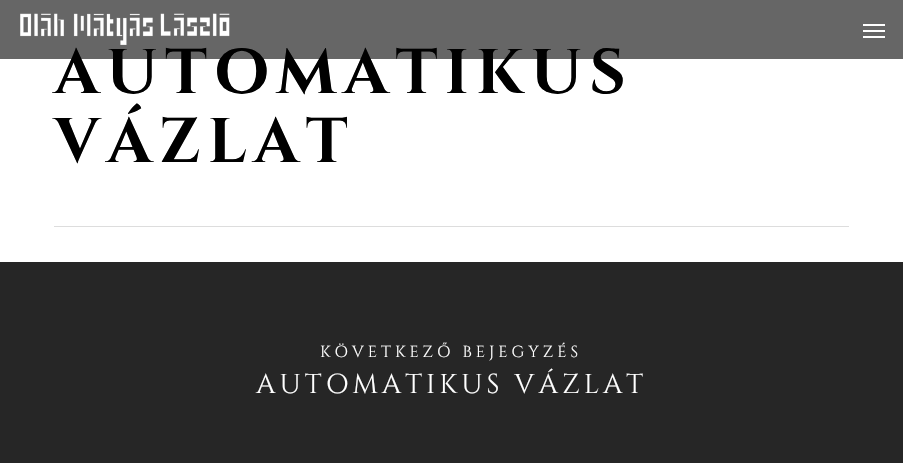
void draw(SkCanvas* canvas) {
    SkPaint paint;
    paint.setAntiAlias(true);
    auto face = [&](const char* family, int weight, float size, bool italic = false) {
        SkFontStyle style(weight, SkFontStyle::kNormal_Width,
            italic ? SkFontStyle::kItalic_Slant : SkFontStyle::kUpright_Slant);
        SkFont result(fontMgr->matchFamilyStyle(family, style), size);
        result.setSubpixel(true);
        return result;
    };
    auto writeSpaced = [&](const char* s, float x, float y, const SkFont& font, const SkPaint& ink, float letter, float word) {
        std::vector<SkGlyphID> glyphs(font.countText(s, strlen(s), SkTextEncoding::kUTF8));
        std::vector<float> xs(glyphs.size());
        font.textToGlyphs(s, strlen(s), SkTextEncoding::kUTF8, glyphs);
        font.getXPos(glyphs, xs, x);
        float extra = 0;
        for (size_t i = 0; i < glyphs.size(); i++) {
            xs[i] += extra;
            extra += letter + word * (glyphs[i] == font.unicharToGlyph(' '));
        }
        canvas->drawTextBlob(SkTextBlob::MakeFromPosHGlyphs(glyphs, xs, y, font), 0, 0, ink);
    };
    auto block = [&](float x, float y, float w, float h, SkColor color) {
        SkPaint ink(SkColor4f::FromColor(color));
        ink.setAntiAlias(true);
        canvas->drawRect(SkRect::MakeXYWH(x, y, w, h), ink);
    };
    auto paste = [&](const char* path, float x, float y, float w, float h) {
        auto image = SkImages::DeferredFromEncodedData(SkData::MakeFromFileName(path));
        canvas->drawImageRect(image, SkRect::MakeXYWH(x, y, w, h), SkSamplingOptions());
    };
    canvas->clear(SK_ColorWHITE);
    auto kFont1 = face("Cinzel", 700, 63);
    paint.setColor(SK_ColorBLACK);
    writeSpaced("AUTOMATIKUS", 54, 93, kFont1, paint, 7, 0);
    block(0, 0, 903, 59, SkColorSetARGB(153, 0, 0, 0));
    paste("pic1.png", 20, 13, 210, 32);
    block(863, 24, 22, 2, SK_ColorWHITE);
    block(863, 36, 22, 2, SK_ColorWHITE);
    block(863, 30, 22, 2, SK_ColorWHITE);
    block(54, 226, 795, 1, SkColorSetRGB(221, 221, 221));
    writeSpaced("VÁZLAT", 54, 162, kFont1, paint, 7, 0);
    block(0, 262, 903, 201, SkColorSetRGB(38, 38, 38));
    auto kFont2 = face("Cinzel", 400, 16);
    paint.setColor(SK_ColorWHITE);
    writeSpaced("KÖVETKEZŐ BEJEGYZÉS", 320, 357, kFont2, paint, 4, 0);
    auto kFont3 = face("Cinzel", 400, 27.25f);
    writeSpaced("AUTOMATIKUS VÁZLAT", 256, 393, kFont3, paint, 4, 0);
}
